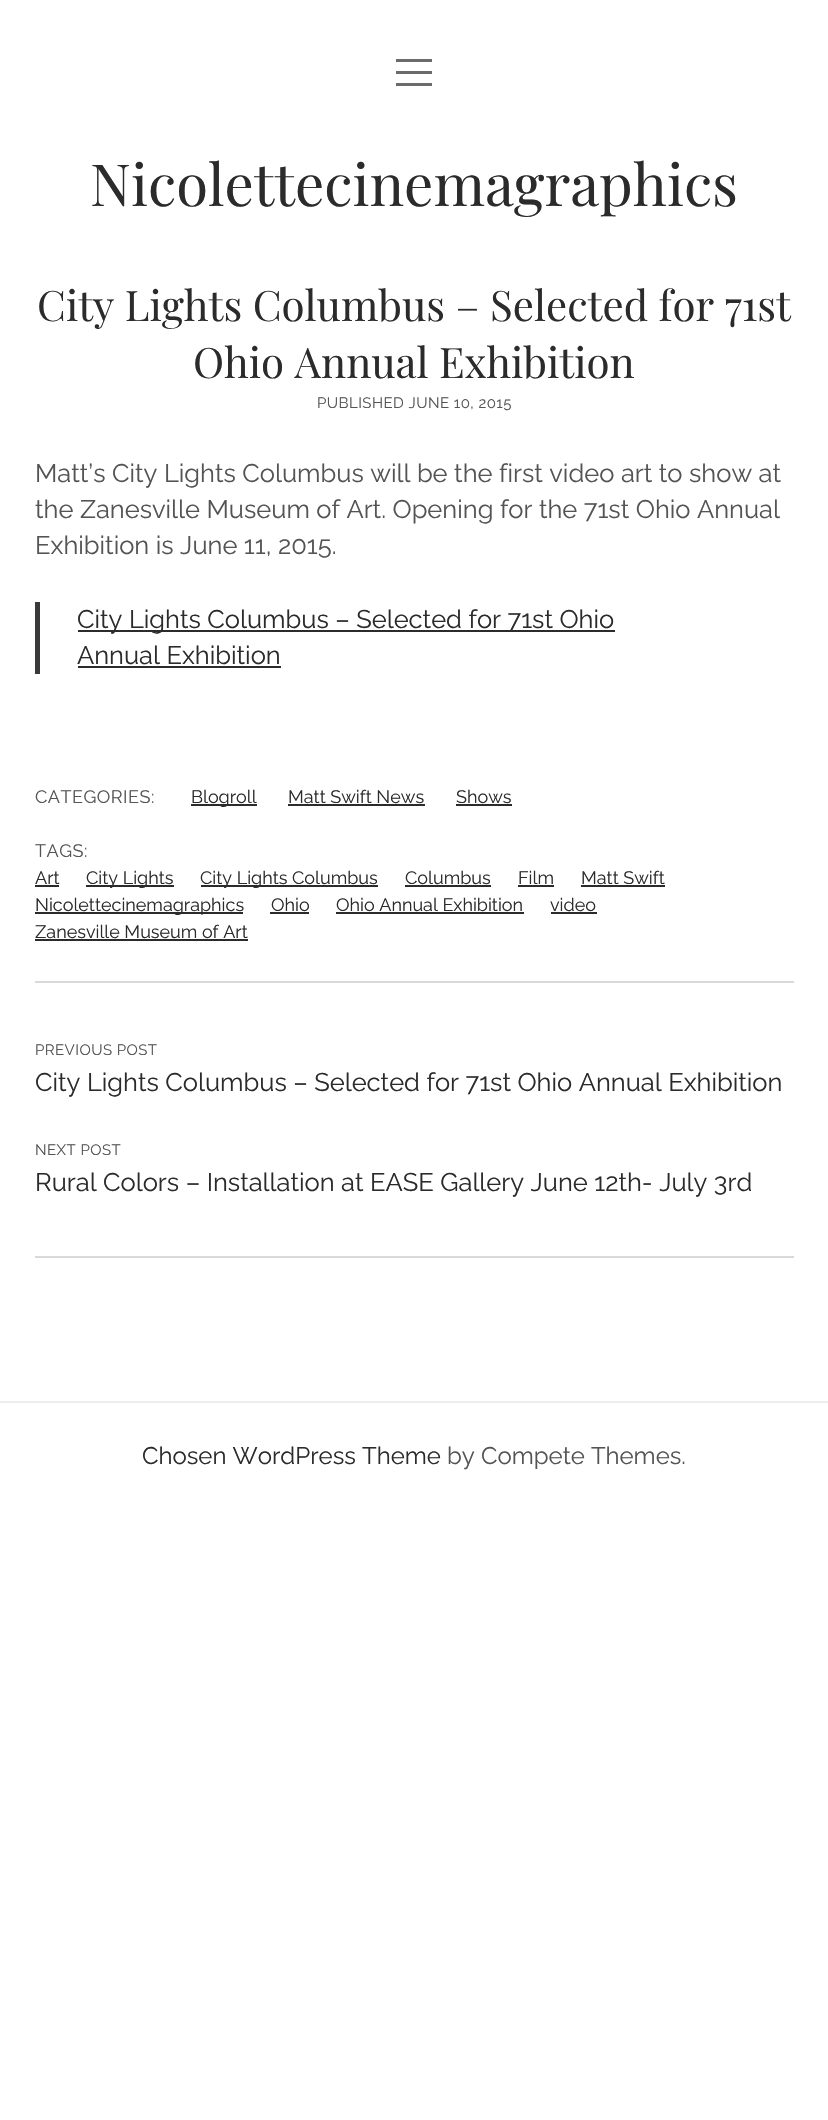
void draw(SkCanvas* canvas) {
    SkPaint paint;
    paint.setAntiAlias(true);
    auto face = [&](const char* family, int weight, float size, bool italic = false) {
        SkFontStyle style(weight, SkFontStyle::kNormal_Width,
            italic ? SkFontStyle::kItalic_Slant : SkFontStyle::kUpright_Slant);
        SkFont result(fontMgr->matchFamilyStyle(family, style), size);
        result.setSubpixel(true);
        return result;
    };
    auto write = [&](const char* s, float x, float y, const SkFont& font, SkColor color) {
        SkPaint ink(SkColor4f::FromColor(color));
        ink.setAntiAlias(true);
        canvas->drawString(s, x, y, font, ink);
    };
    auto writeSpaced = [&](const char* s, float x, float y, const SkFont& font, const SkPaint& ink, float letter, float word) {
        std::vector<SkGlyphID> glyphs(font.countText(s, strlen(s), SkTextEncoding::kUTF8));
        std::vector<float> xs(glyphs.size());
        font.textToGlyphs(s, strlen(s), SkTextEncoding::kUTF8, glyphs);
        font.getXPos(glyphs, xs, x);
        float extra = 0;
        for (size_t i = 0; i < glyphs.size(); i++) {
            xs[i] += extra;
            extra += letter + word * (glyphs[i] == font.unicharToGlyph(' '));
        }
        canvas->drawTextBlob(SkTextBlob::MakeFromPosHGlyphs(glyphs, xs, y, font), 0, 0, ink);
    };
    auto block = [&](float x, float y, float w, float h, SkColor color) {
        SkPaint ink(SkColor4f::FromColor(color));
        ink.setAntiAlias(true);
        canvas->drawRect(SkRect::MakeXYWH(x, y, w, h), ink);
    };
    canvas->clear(SK_ColorWHITE);
    block(396, 59, 36, 3, SkColorSetRGB(107, 107, 107));
    block(396, 71, 36, 3, SkColorSetRGB(107, 107, 107));
    block(396, 83, 36, 3, SkColorSetRGB(107, 107, 107));
    auto kFont1 = face("Playfair Display", 400, 58);
    write("Nicolettecinemagraphics", 90, 206, kFont1, SkColorSetRGB(43, 43, 43));
    auto kFont2 = face("Playfair Display", 400, 42);
    write("City Lights Columbus – Selected for 71st", 37, 321, kFont2, SkColorSetRGB(43, 43, 43));
    write("Ohio Annual Exhibition", 193, 378, kFont2, SkColorSetRGB(43, 43, 43));
    auto kFont3 = face("Raleway", 400, 15);
    paint.setColor(SkColorSetRGB(84, 84, 84));
    writeSpaced("PUBLISHED JUNE 10, 2015", 317, 408, kFont3, paint, 0.45f, 0);
    auto kFont4 = face("Raleway", 400, 25.5f);
    write("Matt’s City Lights Columbus will be the first video art to show at", 35, 482, kFont4, SkColorSetRGB(84, 84, 84));
    write("the Zanesville Museum of Art. Opening for the 71st Ohio Annual", 35, 518, kFont4, SkColorSetRGB(84, 84, 84));
    write("Exhibition is June 11, 2015.", 35, 554, kFont4, SkColorSetRGB(84, 84, 84));
    block(35, 602, 5, 72, SkColorSetRGB(58, 58, 58));
    block(78, 630, 537, 2, SkColorSetRGB(43, 43, 43));
    write("City Lights Columbus – Selected for 71st Ohio", 77, 628, kFont4, SkColorSetRGB(43, 43, 43));
    write("Annual Exhibition", 77, 664, kFont4, SkColorSetRGB(43, 43, 43));
    block(78, 666, 203, 2, SkColorSetRGB(43, 43, 43));
    auto kFont5 = face("Raleway", 400, 18);
    writeSpaced("CATEGORIES:", 35, 803, kFont5, paint, 0.5f, 0);
    block(191, 804, 66, 2, SkColorSetRGB(43, 43, 43));
    write("Blogroll", 191, 803, kFont5, SkColorSetRGB(43, 43, 43));
    write("Matt Swift News", 288, 803, kFont5, SkColorSetRGB(43, 43, 43));
    block(288, 804, 137, 2, SkColorSetRGB(43, 43, 43));
    write("Shows", 456, 803, kFont5, SkColorSetRGB(43, 43, 43));
    block(456, 804, 56, 2, SkColorSetRGB(43, 43, 43));
    writeSpaced("TAGS:", 35, 857, kFont5, paint, 0.5f, 0);
    write("Art", 35, 884, kFont5, SkColorSetRGB(43, 43, 43));
    block(35, 885, 24, 2, SkColorSetRGB(43, 43, 43));
    block(86, 885, 88, 2, SkColorSetRGB(43, 43, 43));
    write("City Lights", 86, 884, kFont5, SkColorSetRGB(43, 43, 43));
    block(201, 885, 177, 2, SkColorSetRGB(43, 43, 43));
    write("City Lights Columbus", 200, 884, kFont5, SkColorSetRGB(43, 43, 43));
    write("Columbus", 405, 884, kFont5, SkColorSetRGB(43, 43, 43));
    block(405, 885, 86, 2, SkColorSetRGB(43, 43, 43));
    write("Film", 518, 884, kFont5, SkColorSetRGB(43, 43, 43));
    block(518, 885, 36, 2, SkColorSetRGB(43, 43, 43));
    write("Matt Swift", 581, 884, kFont5, SkColorSetRGB(43, 43, 43));
    block(581, 885, 84, 2, SkColorSetRGB(43, 43, 43));
    block(35, 912, 208, 2, SkColorSetRGB(43, 43, 43));
    write("Nicolettecinemagraphics", 35, 911, kFont5, SkColorSetRGB(43, 43, 43));
    write("Ohio", 271, 911, kFont5, SkColorSetRGB(43, 43, 43));
    block(270, 912, 39, 2, SkColorSetRGB(43, 43, 43));
    write("Ohio Annual Exhibition", 336, 911, kFont5, SkColorSetRGB(43, 43, 43));
    block(336, 912, 188, 2, SkColorSetRGB(43, 43, 43));
    write("video", 550, 911, kFont5, SkColorSetRGB(43, 43, 43));
    block(551, 912, 46, 2, SkColorSetRGB(43, 43, 43));
    write("Zanesville Museum of Art", 35, 938, kFont5, SkColorSetRGB(43, 43, 43));
    block(35, 939, 213, 2, SkColorSetRGB(43, 43, 43));
    block(35, 981, 759, 2, SkColorSetRGB(217, 217, 217));
    block(35, 1256, 759, 2, SkColorSetRGB(217, 217, 217));
    writeSpaced("PREVIOUS POST", 35, 1055, kFont3, paint, 0.45f, 0);
    write("City Lights Columbus – Selected for 71st Ohio Annual Exhibition", 35, 1091, kFont4, SkColorSetRGB(43, 43, 43));
    writeSpaced("NEXT POST", 35, 1155, kFont3, paint, 0.45f, 0);
    write("Rural Colors – Installation at EASE Gallery June 12th- July 3rd", 35, 1191, kFont4, SkColorSetRGB(43, 43, 43));
    block(0, 1401, 828, 2, SkColorSetRGB(237, 237, 237));
    auto kFont6 = face("Raleway", 400, 24);
    write("Chosen WordPress Theme", 142, 1464, kFont6, SkColorSetRGB(43, 43, 43));
    write("by Compete Themes.", 447, 1464, kFont6, SkColorSetRGB(84, 84, 84));
}
